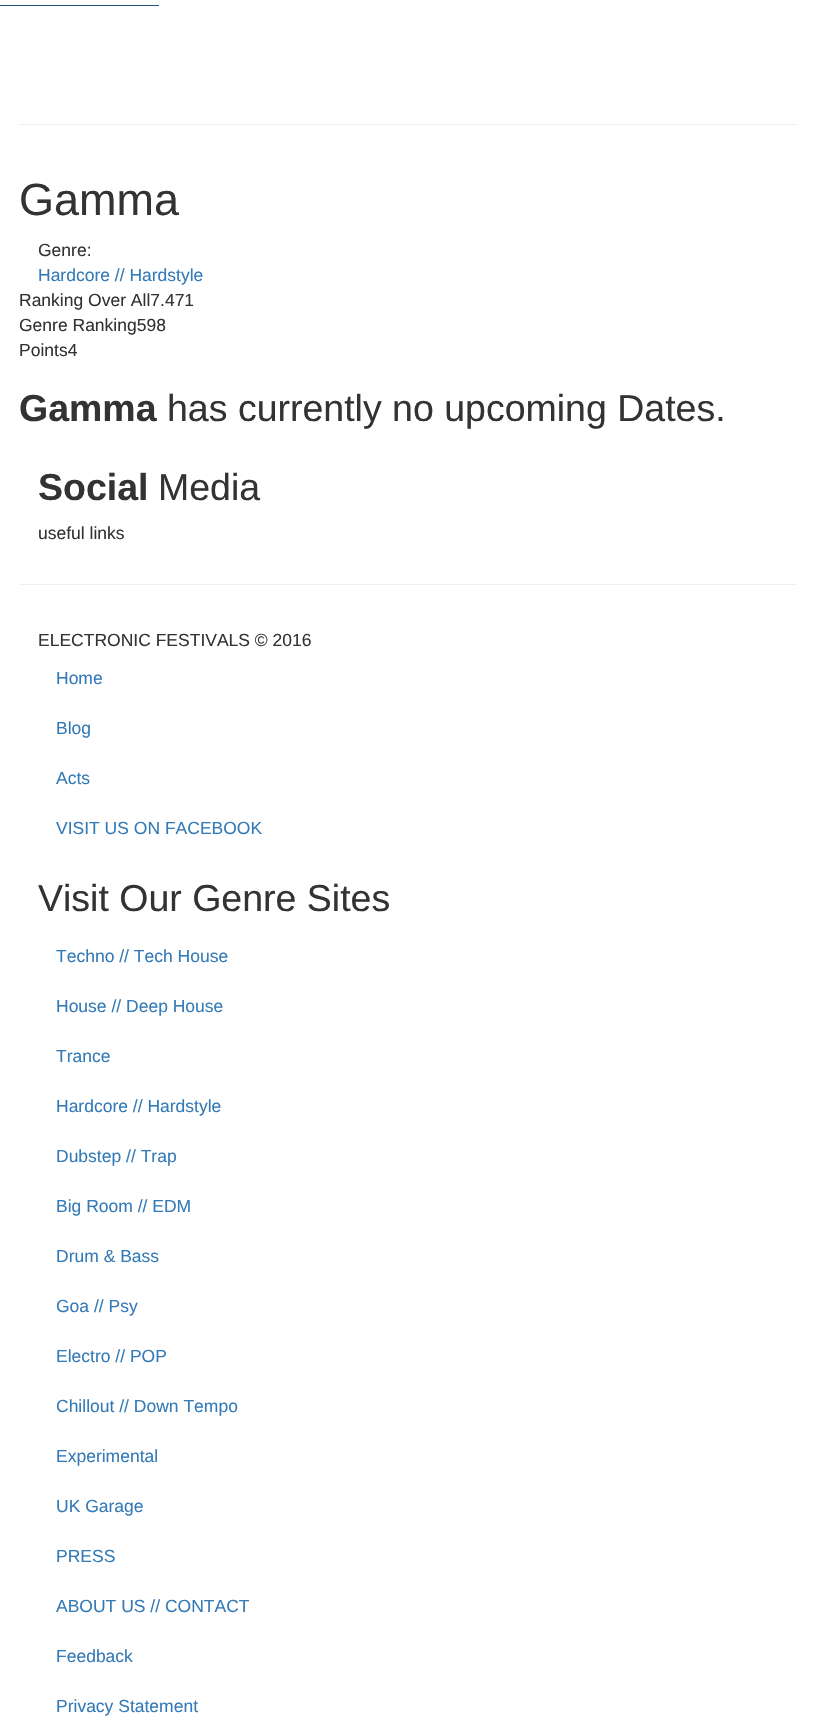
void draw(SkCanvas* canvas) {
    SkPaint paint;
    paint.setAntiAlias(true);
    auto face = [&](const char* family, int weight, float size, bool italic = false) {
        SkFontStyle style(weight, SkFontStyle::kNormal_Width,
            italic ? SkFontStyle::kItalic_Slant : SkFontStyle::kUpright_Slant);
        SkFont result(fontMgr->matchFamilyStyle(family, style), size);
        result.setSubpixel(true);
        return result;
    };
    auto write = [&](const char* s, float x, float y, const SkFont& font, SkColor color) {
        SkPaint ink(SkColor4f::FromColor(color));
        ink.setAntiAlias(true);
        canvas->drawString(s, x, y, font, ink);
    };
    auto block = [&](float x, float y, float w, float h, SkColor color) {
        SkPaint ink(SkColor4f::FromColor(color));
        ink.setAntiAlias(true);
        canvas->drawRect(SkRect::MakeXYWH(x, y, w, h), ink);
    };
    canvas->clear(SK_ColorWHITE);
    block(0, 5, 159, 1, SkColorSetRGB(35, 82, 124));
    block(19, 124, 777, 1, SkColorSetRGB(238, 238, 238));
    auto kFont1 = face("Liberation Sans", 400, 45);
    write("Gamma", 19, 215, kFont1, SkColorSetRGB(51, 51, 51));
    auto kFont2 = face("Liberation Sans", 400, 17.5f);
    write("Genre:", 38, 256, kFont2, SkColorSetRGB(51, 51, 51));
    write("Hardcore // Hardstyle", 38, 281, kFont2, SkColorSetRGB(51, 122, 183));
    write("Ranking Over All7.471", 19, 306, kFont2, SkColorSetRGB(51, 51, 51));
    write("Genre Ranking598", 19, 331, kFont2, SkColorSetRGB(51, 51, 51));
    write("Points4", 19, 356, kFont2, SkColorSetRGB(51, 51, 51));
    auto kFont3 = face("Liberation Sans", 700, 37.5f);
    write("Gamma", 19, 421, kFont3, SkColorSetRGB(51, 51, 51));
    auto kFont4 = face("Liberation Sans", 400, 37.5f);
    write("has currently no upcoming Dates.", 167, 421, kFont4, SkColorSetRGB(51, 51, 51));
    write("Social", 38, 500, kFont3, SkColorSetRGB(51, 51, 51));
    write("Media", 158, 500, kFont4, SkColorSetRGB(51, 51, 51));
    write("useful links", 38, 539, kFont2, SkColorSetRGB(51, 51, 51));
    block(19, 584, 777, 1, SkColorSetRGB(238, 238, 238));
    write("ELECTRONIC FESTIVALS © 2016", 38, 646, kFont2, SkColorSetRGB(51, 51, 51));
    write("Home", 56, 684, kFont2, SkColorSetRGB(51, 122, 183));
    write("Blog", 56, 734, kFont2, SkColorSetRGB(51, 122, 183));
    write("Acts", 56, 784, kFont2, SkColorSetRGB(51, 122, 183));
    write("VISIT US ON FACEBOOK", 56, 834, kFont2, SkColorSetRGB(51, 122, 183));
    write("Visit Our Genre Sites", 38, 911, kFont4, SkColorSetRGB(51, 51, 51));
    write("Techno // Tech House", 56, 962, kFont2, SkColorSetRGB(51, 122, 183));
    write("House // Deep House", 56, 1012, kFont2, SkColorSetRGB(51, 122, 183));
    write("Trance", 56, 1062, kFont2, SkColorSetRGB(51, 122, 183));
    write("Hardcore // Hardstyle", 56, 1112, kFont2, SkColorSetRGB(51, 122, 183));
    write("Dubstep // Trap", 56, 1162, kFont2, SkColorSetRGB(51, 122, 183));
    write("Big Room // EDM", 56, 1212, kFont2, SkColorSetRGB(51, 122, 183));
    write("Drum & Bass", 56, 1262, kFont2, SkColorSetRGB(51, 122, 183));
    write("Goa // Psy", 56, 1312, kFont2, SkColorSetRGB(51, 122, 183));
    write("Electro // POP", 56, 1362, kFont2, SkColorSetRGB(51, 122, 183));
    write("Chillout // Down Tempo", 56, 1412, kFont2, SkColorSetRGB(51, 122, 183));
    write("Experimental", 56, 1462, kFont2, SkColorSetRGB(51, 122, 183));
    write("UK Garage", 56, 1512, kFont2, SkColorSetRGB(51, 122, 183));
    write("PRESS", 56, 1562, kFont2, SkColorSetRGB(51, 122, 183));
    write("ABOUT US // CONTACT", 56, 1612, kFont2, SkColorSetRGB(51, 122, 183));
    write("Feedback", 56, 1662, kFont2, SkColorSetRGB(51, 122, 183));
    write("Privacy Statement", 56, 1712, kFont2, SkColorSetRGB(51, 122, 183));
}
